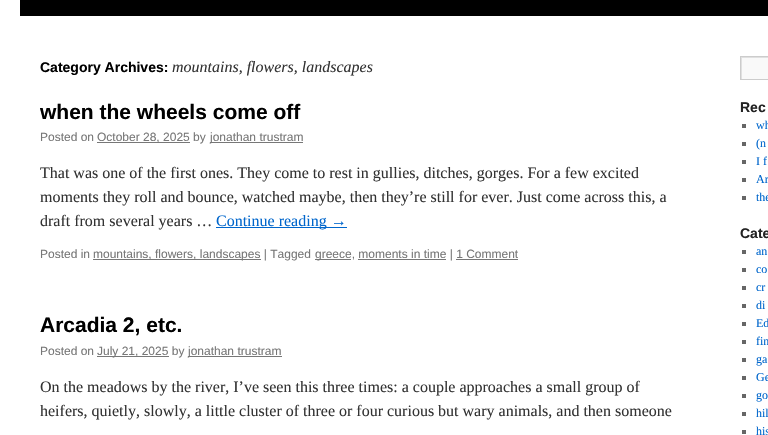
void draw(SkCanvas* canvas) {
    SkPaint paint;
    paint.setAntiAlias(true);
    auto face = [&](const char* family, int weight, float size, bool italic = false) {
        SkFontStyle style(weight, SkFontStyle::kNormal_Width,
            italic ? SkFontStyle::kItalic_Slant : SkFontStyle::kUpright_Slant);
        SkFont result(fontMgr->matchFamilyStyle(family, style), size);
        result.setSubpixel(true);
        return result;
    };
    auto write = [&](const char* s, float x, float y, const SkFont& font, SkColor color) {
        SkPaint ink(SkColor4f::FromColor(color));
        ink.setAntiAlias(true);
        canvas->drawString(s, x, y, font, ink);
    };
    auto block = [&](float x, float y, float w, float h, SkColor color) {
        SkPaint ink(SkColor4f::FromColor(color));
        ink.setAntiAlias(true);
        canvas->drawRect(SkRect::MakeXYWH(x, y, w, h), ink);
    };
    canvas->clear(SK_ColorWHITE);
    block(20, 0, 748, 16, SK_ColorBLACK);
    auto kFont1 = face("Liberation Sans", 700, 14);
    write("Category Archives:", 40, 72, kFont1, SK_ColorBLACK);
    auto kFont2 = face("Liberation Serif", 400, 16, true);
    write("mountains, flowers, landscapes", 172, 72, kFont2, SkColorSetRGB(51, 51, 51));
    auto kFont3 = face("Liberation Sans", 700, 21);
    write("when the wheels come off", 40, 119, kFont3, SK_ColorBLACK);
    auto kFont4 = face("Liberation Sans", 400, 12);
    write("Posted on", 40, 141, kFont4, SkColorSetRGB(119, 119, 119));
    block(97, 142, 93, 1, SkColorSetRGB(119, 119, 119));
    write("October 28, 2025 by", 97, 141, kFont4, SkColorSetRGB(119, 119, 119));
    block(210, 142, 93, 1, SkColorSetRGB(119, 119, 119));
    write("jonathan trustram", 210, 141, kFont4, SkColorSetRGB(119, 119, 119));
    auto kFont5 = face("Liberation Serif", 400, 16);
    write("That was one of the first ones. They come to rest in gullies, ditches, gorges. For a few excited", 40, 178, kFont5, SkColorSetRGB(51, 51, 51));
    write("moments they roll and bounce, watched maybe, then they’re still for ever. Just come across this, a", 40, 202, kFont5, SkColorSetRGB(51, 51, 51));
    write("draft from several years …", 40, 226, kFont5, SkColorSetRGB(51, 51, 51));
    block(216, 227, 131, 1, SkColorSetRGB(0, 102, 204));
    write("Continue reading →", 216, 226, kFont5, SkColorSetRGB(0, 102, 204));
    write("Posted in", 40, 258, kFont4, SkColorSetRGB(119, 119, 119));
    block(93, 259, 168, 1, SkColorSetRGB(119, 119, 119));
    write("mountains, flowers, landscapes | Tagged", 93, 258, kFont4, SkColorSetRGB(119, 119, 119));
    block(315, 259, 36, 1, SkColorSetRGB(119, 119, 119));
    write("greece, moments in time | 1 Comment", 315, 258, kFont4, SkColorSetRGB(119, 119, 119));
    block(358, 259, 88, 1, SkColorSetRGB(119, 119, 119));
    block(456, 259, 62, 1, SkColorSetRGB(119, 119, 119));
    write("Arcadia 2, etc.", 40, 332, kFont3, SK_ColorBLACK);
    write("Posted on", 40, 355, kFont4, SkColorSetRGB(119, 119, 119));
    block(97, 356, 72, 1, SkColorSetRGB(119, 119, 119));
    write("July 21, 2025 by", 97, 355, kFont4, SkColorSetRGB(119, 119, 119));
    block(188, 356, 94, 1, SkColorSetRGB(119, 119, 119));
    write("jonathan trustram", 188, 355, kFont4, SkColorSetRGB(119, 119, 119));
    write("On the meadows by the river, I’ve seen this three times: a couple approaches a small group of", 40, 392, kFont5, SkColorSetRGB(51, 51, 51));
    write("heifers, quietly, slowly, a little cluster of three or four curious but wary animals, and then someone", 40, 416, kFont5, SkColorSetRGB(51, 51, 51));
    block(742, 58, 26, 21, SkColorSetRGB(249, 249, 249));
    canvas->save();
    canvas->clipRect(SkRect::MakeXYWH(741, 57, 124, 22));
    paint.setColor(SkColorSetRGB(224, 224, 224));
    canvas->drawPath(SkPathBuilder(SkPathFillType::kEvenOdd).moveTo(642, -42).lineTo(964, -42).lineTo(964, 178).lineTo(642, 178).close().moveTo(742, 58).lineTo(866, 58).lineTo(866, 80).lineTo(742, 80).close().detach(), paint);
    canvas->restore();
    paint.setStyle(SkPaint::kStroke_Style);
    paint.setStrokeWidth(1);
    paint.setColor(SkColorSetRGB(204, 204, 204));
    canvas->drawRect(SkRect::MakeXYWH(740.5f, 56.5f, 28, 23), paint);
    write("Rec", 740, 112, kFont1, SkColorSetRGB(34, 34, 34));
    block(742, 124, 4, 4, SkColorSetRGB(102, 102, 102));
    auto kFont6 = face("Liberation Serif", 400, 12);
    write("wh", 756, 129, kFont6, SkColorSetRGB(0, 102, 204));
    block(742, 142, 4, 4, SkColorSetRGB(102, 102, 102));
    write("(n", 756, 147, kFont6, SkColorSetRGB(0, 102, 204));
    block(742, 160, 4, 4, SkColorSetRGB(102, 102, 102));
    write("I f", 756, 165, kFont6, SkColorSetRGB(0, 102, 204));
    block(742, 178, 4, 4, SkColorSetRGB(102, 102, 102));
    write("Ar", 756, 183, kFont6, SkColorSetRGB(0, 102, 204));
    block(742, 196, 4, 4, SkColorSetRGB(102, 102, 102));
    write("the", 756, 201, kFont6, SkColorSetRGB(0, 102, 204));
    write("Cate", 740, 238, kFont1, SkColorSetRGB(34, 34, 34));
    block(742, 250, 4, 4, SkColorSetRGB(102, 102, 102));
    write("an", 756, 255, kFont6, SkColorSetRGB(0, 102, 204));
    block(742, 268, 4, 4, SkColorSetRGB(102, 102, 102));
    write("co", 756, 273, kFont6, SkColorSetRGB(0, 102, 204));
    block(742, 286, 4, 4, SkColorSetRGB(102, 102, 102));
    write("cr", 756, 291, kFont6, SkColorSetRGB(0, 102, 204));
    block(742, 304, 4, 4, SkColorSetRGB(102, 102, 102));
    write("di", 756, 309, kFont6, SkColorSetRGB(0, 102, 204));
    block(742, 322, 4, 4, SkColorSetRGB(102, 102, 102));
    write("Ed", 756, 327, kFont6, SkColorSetRGB(0, 102, 204));
    block(742, 340, 4, 4, SkColorSetRGB(102, 102, 102));
    write("fin", 756, 345, kFont6, SkColorSetRGB(0, 102, 204));
    block(742, 358, 4, 4, SkColorSetRGB(102, 102, 102));
    write("ga", 756, 363, kFont6, SkColorSetRGB(0, 102, 204));
    block(742, 376, 4, 4, SkColorSetRGB(102, 102, 102));
    write("Ge", 756, 381, kFont6, SkColorSetRGB(0, 102, 204));
    block(742, 394, 4, 4, SkColorSetRGB(102, 102, 102));
    write("go", 756, 399, kFont6, SkColorSetRGB(0, 102, 204));
    block(742, 412, 4, 4, SkColorSetRGB(102, 102, 102));
    write("hil", 756, 417, kFont6, SkColorSetRGB(0, 102, 204));
    block(742, 430, 4, 4, SkColorSetRGB(102, 102, 102));
    write("his", 756, 435, kFont6, SkColorSetRGB(0, 102, 204));
}
